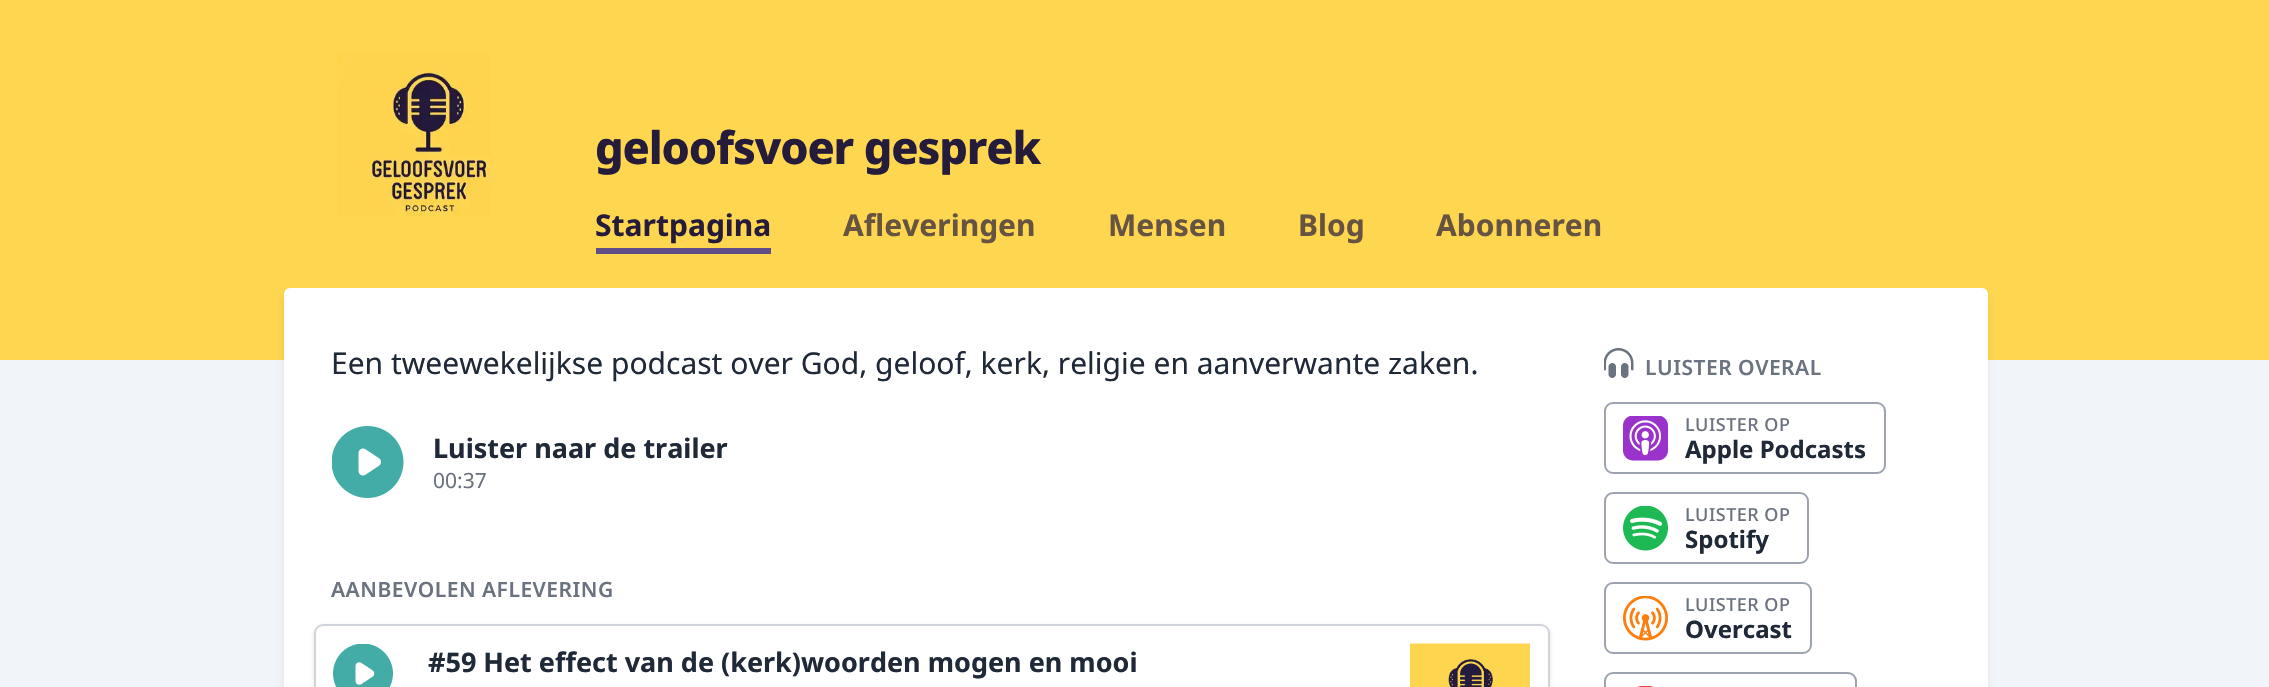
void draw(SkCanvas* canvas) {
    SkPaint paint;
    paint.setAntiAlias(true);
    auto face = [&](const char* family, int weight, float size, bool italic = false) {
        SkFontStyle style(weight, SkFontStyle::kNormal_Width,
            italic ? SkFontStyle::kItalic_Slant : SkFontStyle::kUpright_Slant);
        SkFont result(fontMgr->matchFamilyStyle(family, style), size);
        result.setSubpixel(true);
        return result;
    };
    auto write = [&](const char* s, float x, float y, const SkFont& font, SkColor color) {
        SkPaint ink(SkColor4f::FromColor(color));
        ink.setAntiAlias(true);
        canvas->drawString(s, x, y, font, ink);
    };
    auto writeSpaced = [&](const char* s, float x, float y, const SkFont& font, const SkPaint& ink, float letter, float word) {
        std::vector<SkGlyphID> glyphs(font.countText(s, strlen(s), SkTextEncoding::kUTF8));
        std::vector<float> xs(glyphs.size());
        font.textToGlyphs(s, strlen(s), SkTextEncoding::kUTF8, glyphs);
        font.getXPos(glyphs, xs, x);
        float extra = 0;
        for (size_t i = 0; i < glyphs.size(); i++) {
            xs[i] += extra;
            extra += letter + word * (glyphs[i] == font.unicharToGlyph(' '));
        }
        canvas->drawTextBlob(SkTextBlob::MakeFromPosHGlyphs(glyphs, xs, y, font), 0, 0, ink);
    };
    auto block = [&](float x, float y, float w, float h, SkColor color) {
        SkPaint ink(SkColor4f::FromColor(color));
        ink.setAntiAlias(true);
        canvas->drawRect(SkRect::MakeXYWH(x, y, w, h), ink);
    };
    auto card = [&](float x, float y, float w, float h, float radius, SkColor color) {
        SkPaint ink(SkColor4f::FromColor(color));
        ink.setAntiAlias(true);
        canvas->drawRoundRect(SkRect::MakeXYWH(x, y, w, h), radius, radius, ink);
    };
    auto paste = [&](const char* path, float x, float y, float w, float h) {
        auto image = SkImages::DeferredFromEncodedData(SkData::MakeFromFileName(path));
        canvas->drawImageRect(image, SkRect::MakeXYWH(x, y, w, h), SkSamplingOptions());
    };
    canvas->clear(SkColorSetRGB(241, 245, 249));
    block(0, 0, 2269, 360, SkColorSetRGB(255, 214, 80));
    paste("pic1.png", 337, 53, 154, 163);
    auto kFont1 = face("Noto Sans", 800, 45);
    paint.setColor(SkColorSetRGB(37, 27, 59));
    writeSpaced("geloofsvoer gesprek", 595, 164, kFont1, paint, -1.1f, 0);
    auto kFont2 = face("Noto Sans", 700, 30);
    write("Startpagina", 595, 236, kFont2, SkColorSetRGB(37, 27, 59));
    block(596, 248, 175, 6, SkColorSetRGB(95, 78, 136));
    write("Afleveringen", 843, 236, kFont2, SkColorSetRGB(102, 83, 65));
    write("Mensen", 1108, 236, kFont2, SkColorSetRGB(102, 83, 65));
    write("Blog", 1298, 236, kFont2, SkColorSetRGB(102, 83, 65));
    write("Abonneren", 1436, 236, kFont2, SkColorSetRGB(102, 83, 65));
    paint.setColor(SkColorSetARGB(26, 0, 0, 0));
    paint.setMaskFilter(SkMaskFilter::MakeBlur(kNormal_SkBlurStyle, 4.5f));
    canvas->drawRoundRect(SkRect::MakeXYWH(285, 296, 1701, 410), 5, 5, paint);
    paint.setMaskFilter(nullptr);
    card(284, 288, 1704, 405, 6, SK_ColorWHITE);
    auto kFont3 = face("Noto Sans", 400, 30);
    write("Een tweewekelijkse podcast over God, geloof, kerk, religie en aanverwante zaken.", 331, 374, kFont3, SkColorSetRGB(31, 41, 55));
    paste("pic2.png", 332, 426, 72, 72);
    auto kFont4 = face("Noto Sans", 700, 27);
    write("Luister naar de trailer", 433, 458, kFont4, SkColorSetRGB(31, 41, 55));
    auto kFont5 = face("Noto Sans", 400, 21);
    write("00:37", 433, 488, kFont5, SkColorSetRGB(107, 114, 128));
    auto kFont6 = face("Noto Sans", 600, 21);
    paint.setColor(SkColorSetRGB(107, 114, 128));
    writeSpaced("AANBEVOLEN AFLEVERING", 331, 597, kFont6, paint, 0.5f, 0);
    canvas->save();
    canvas->clipPath(SkPathBuilder(SkPathFillType::kEvenOdd).moveTo(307, 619).lineTo(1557, 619).lineTo(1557, 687).lineTo(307, 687).close().moveTo(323, 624).lineTo(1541, 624).cubicTo(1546, 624, 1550, 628, 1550, 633).lineTo(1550, 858).cubicTo(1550, 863, 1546, 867, 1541, 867).lineTo(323, 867).cubicTo(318, 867, 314, 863, 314, 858).lineTo(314, 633).cubicTo(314, 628, 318, 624, 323, 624).close().detach(), true);
    paint.setColor(SkColorSetARGB(26, 0, 0, 0));
    paint.setMaskFilter(SkMaskFilter::MakeBlur(kNormal_SkBlurStyle, 2));
    canvas->drawRoundRect(SkRect::MakeXYWH(314, 626, 1236, 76), 9, 9, paint);
    paint.setMaskFilter(nullptr);
    canvas->restore();
    paint.setStyle(SkPaint::kStroke_Style);
    paint.setStrokeWidth(2);
    paint.setColor(SkColorSetRGB(209, 213, 219));
    canvas->drawRoundRect(SkRect::MakeXYWH(315, 625, 1234, 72), 8, 8, paint);
    paste("pic3.png", 333, 644, 60, 43);
    write("#59 Het effect van de (kerk)woorden mogen en mooi", 428, 672, kFont4, SkColorSetRGB(31, 41, 55));
    paste("pic4.png", 1410, 643, 120, 44);
    paste("pic5.png", 1604, 348, 30, 30);
    paint.setStyle(SkPaint::kFill_Style);
    paint.setColor(SkColorSetRGB(107, 114, 128));
    writeSpaced("LUISTER OVERAL", 1645, 375, kFont6, paint, 0.5f, 0);
    paint.setStyle(SkPaint::kStroke_Style);
    paint.setColor(SkColorSetRGB(156, 163, 175));
    canvas->drawRoundRect(SkRect::MakeXYWH(1605, 403, 280, 70), 8, 8, paint);
    paste("pic6.png", 1623, 416, 45, 45);
    auto kFont7 = face("Noto Sans", 500, 18);
    paint.setStyle(SkPaint::kFill_Style);
    paint.setColor(SkColorSetRGB(107, 114, 128));
    writeSpaced("LUISTER OP", 1685, 431, kFont7, paint, 0.5f, 0);
    auto kFont8 = face("Noto Sans", 700, 24);
    write("Apple Podcasts", 1685, 458, kFont8, SkColorSetRGB(31, 41, 55));
    paint.setStyle(SkPaint::kStroke_Style);
    paint.setColor(SkColorSetRGB(156, 163, 175));
    canvas->drawRoundRect(SkRect::MakeXYWH(1605, 493, 203, 70), 8, 8, paint);
    paste("pic7.png", 1623, 506, 45, 45);
    paint.setStyle(SkPaint::kFill_Style);
    paint.setColor(SkColorSetRGB(107, 114, 128));
    writeSpaced("LUISTER OP", 1685, 521, kFont7, paint, 0.5f, 0);
    write("Spotify", 1685, 548, kFont8, SkColorSetRGB(31, 41, 55));
    paint.setStyle(SkPaint::kStroke_Style);
    paint.setColor(SkColorSetRGB(156, 163, 175));
    canvas->drawRoundRect(SkRect::MakeXYWH(1605, 583, 206, 70), 8, 8, paint);
    paste("pic8.png", 1623, 596, 45, 45);
    paint.setStyle(SkPaint::kFill_Style);
    paint.setColor(SkColorSetRGB(107, 114, 128));
    writeSpaced("LUISTER OP", 1685, 611, kFont7, paint, 0.5f, 0);
    write("Overcast", 1685, 638, kFont8, SkColorSetRGB(31, 41, 55));
    paint.setStyle(SkPaint::kStroke_Style);
    paint.setColor(SkColorSetRGB(156, 163, 175));
    canvas->drawRoundRect(SkRect::MakeXYWH(1605, 673, 251, 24), 8, 8, paint);
    paste("pic9.png", 1637, 686, 17, 1);
}
